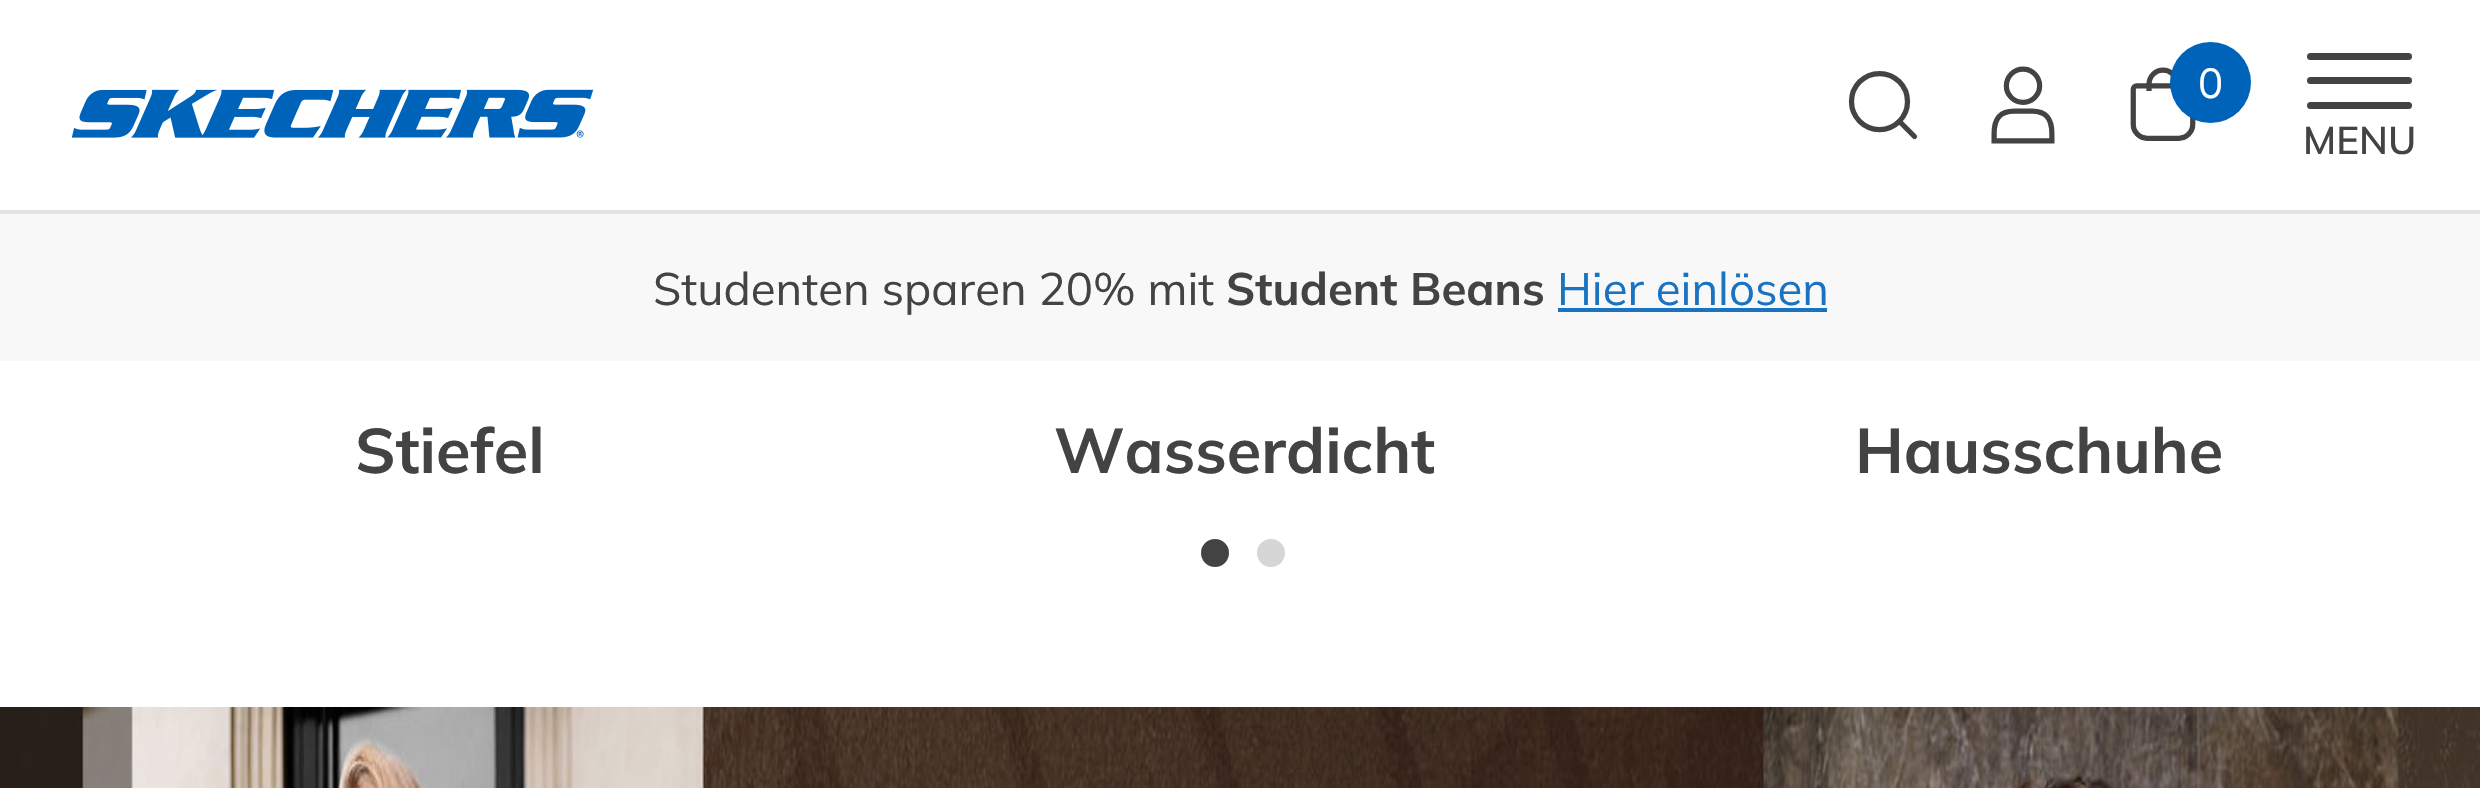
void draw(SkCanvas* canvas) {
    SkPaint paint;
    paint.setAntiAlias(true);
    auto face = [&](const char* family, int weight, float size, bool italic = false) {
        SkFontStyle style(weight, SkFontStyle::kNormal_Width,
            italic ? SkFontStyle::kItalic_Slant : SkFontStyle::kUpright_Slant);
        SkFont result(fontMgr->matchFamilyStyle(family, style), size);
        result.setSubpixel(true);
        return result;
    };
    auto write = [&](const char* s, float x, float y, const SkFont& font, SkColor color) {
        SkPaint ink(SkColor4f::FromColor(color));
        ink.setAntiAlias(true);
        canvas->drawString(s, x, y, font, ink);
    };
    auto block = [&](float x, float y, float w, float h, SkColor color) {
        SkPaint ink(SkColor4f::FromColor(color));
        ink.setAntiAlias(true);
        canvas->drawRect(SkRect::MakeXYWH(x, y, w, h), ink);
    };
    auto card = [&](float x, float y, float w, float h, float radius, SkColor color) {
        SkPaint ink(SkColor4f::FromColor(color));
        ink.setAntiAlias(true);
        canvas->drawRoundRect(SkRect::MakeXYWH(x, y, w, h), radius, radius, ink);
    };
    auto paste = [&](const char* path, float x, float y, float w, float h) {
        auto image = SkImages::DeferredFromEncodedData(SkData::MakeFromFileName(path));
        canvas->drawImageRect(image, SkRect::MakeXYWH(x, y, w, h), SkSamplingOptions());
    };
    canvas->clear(SK_ColorWHITE);
    block(0, 210, 2480, 4, SkColorSetRGB(227, 227, 227));
    paste("pic1.png", 71, 89, 523, 49);
    paste("pic2.png", 1848, 71, 70, 69);
    paste("pic3.png", 1991, 66, 64, 78);
    paste("pic4.png", 2130, 67, 66, 74);
    paint.setColor(SkColorSetRGB(0, 99, 186));
    canvas->drawCircle(2210.5f, 82.5f, 40.5f, paint);
    auto kFont1 = face("Mulish", 400, 42);
    write("0", 2198, 98, kFont1, SK_ColorWHITE);
    card(2307, 53, 105, 7, 3.5f, SkColorSetRGB(67, 67, 67));
    card(2307, 77, 105, 7, 3.5f, SkColorSetRGB(67, 67, 67));
    card(2307, 102, 105, 7, 3.5f, SkColorSetRGB(67, 67, 67));
    auto kFont2 = face("Mulish", 600, 38.5f);
    write("MENU", 2303, 154, kFont2, SkColorSetRGB(67, 67, 67));
    block(0, 214, 2480, 147, SkColorSetRGB(248, 248, 248));
    auto kFont3 = face("Mulish", 400, 45.5f);
    write("Studenten sparen 20% mit", 653, 305, kFont3, SkColorSetRGB(67, 67, 67));
    auto kFont4 = face("Mulish", 700, 45.5f);
    write("Student Beans", 1226, 305, kFont4, SkColorSetRGB(67, 67, 67));
    write("Hier einlösen", 1557, 305, kFont3, SkColorSetRGB(25, 115, 193));
    block(1558, 308, 269, 4, SkColorSetRGB(25, 115, 193));
    auto kFont5 = face("Mulish", 700, 63);
    write("Stiefel", 355, 473, kFont5, SkColorSetRGB(67, 67, 67));
    write("Wasserdicht", 1054, 473, kFont5, SkColorSetRGB(67, 67, 67));
    write("Hausschuhe", 1855, 473, kFont5, SkColorSetRGB(67, 67, 67));
    paint.setColor(SkColorSetRGB(67, 67, 67));
    canvas->drawCircle(1215, 553, 12, paint);
    paint.setStyle(SkPaint::kStroke_Style);
    paint.setStrokeWidth(4);
    canvas->drawCircle(1215, 553, 12, paint);
    paint.setStyle(SkPaint::kFill_Style);
    paint.setColor(SkColorSetRGB(214, 214, 214));
    canvas->drawCircle(1271, 553, 12, paint);
    paint.setStyle(SkPaint::kStroke_Style);
    canvas->drawCircle(1271, 553, 12, paint);
    paste("pic5.png", 0, 707, 2480, 81);
}
